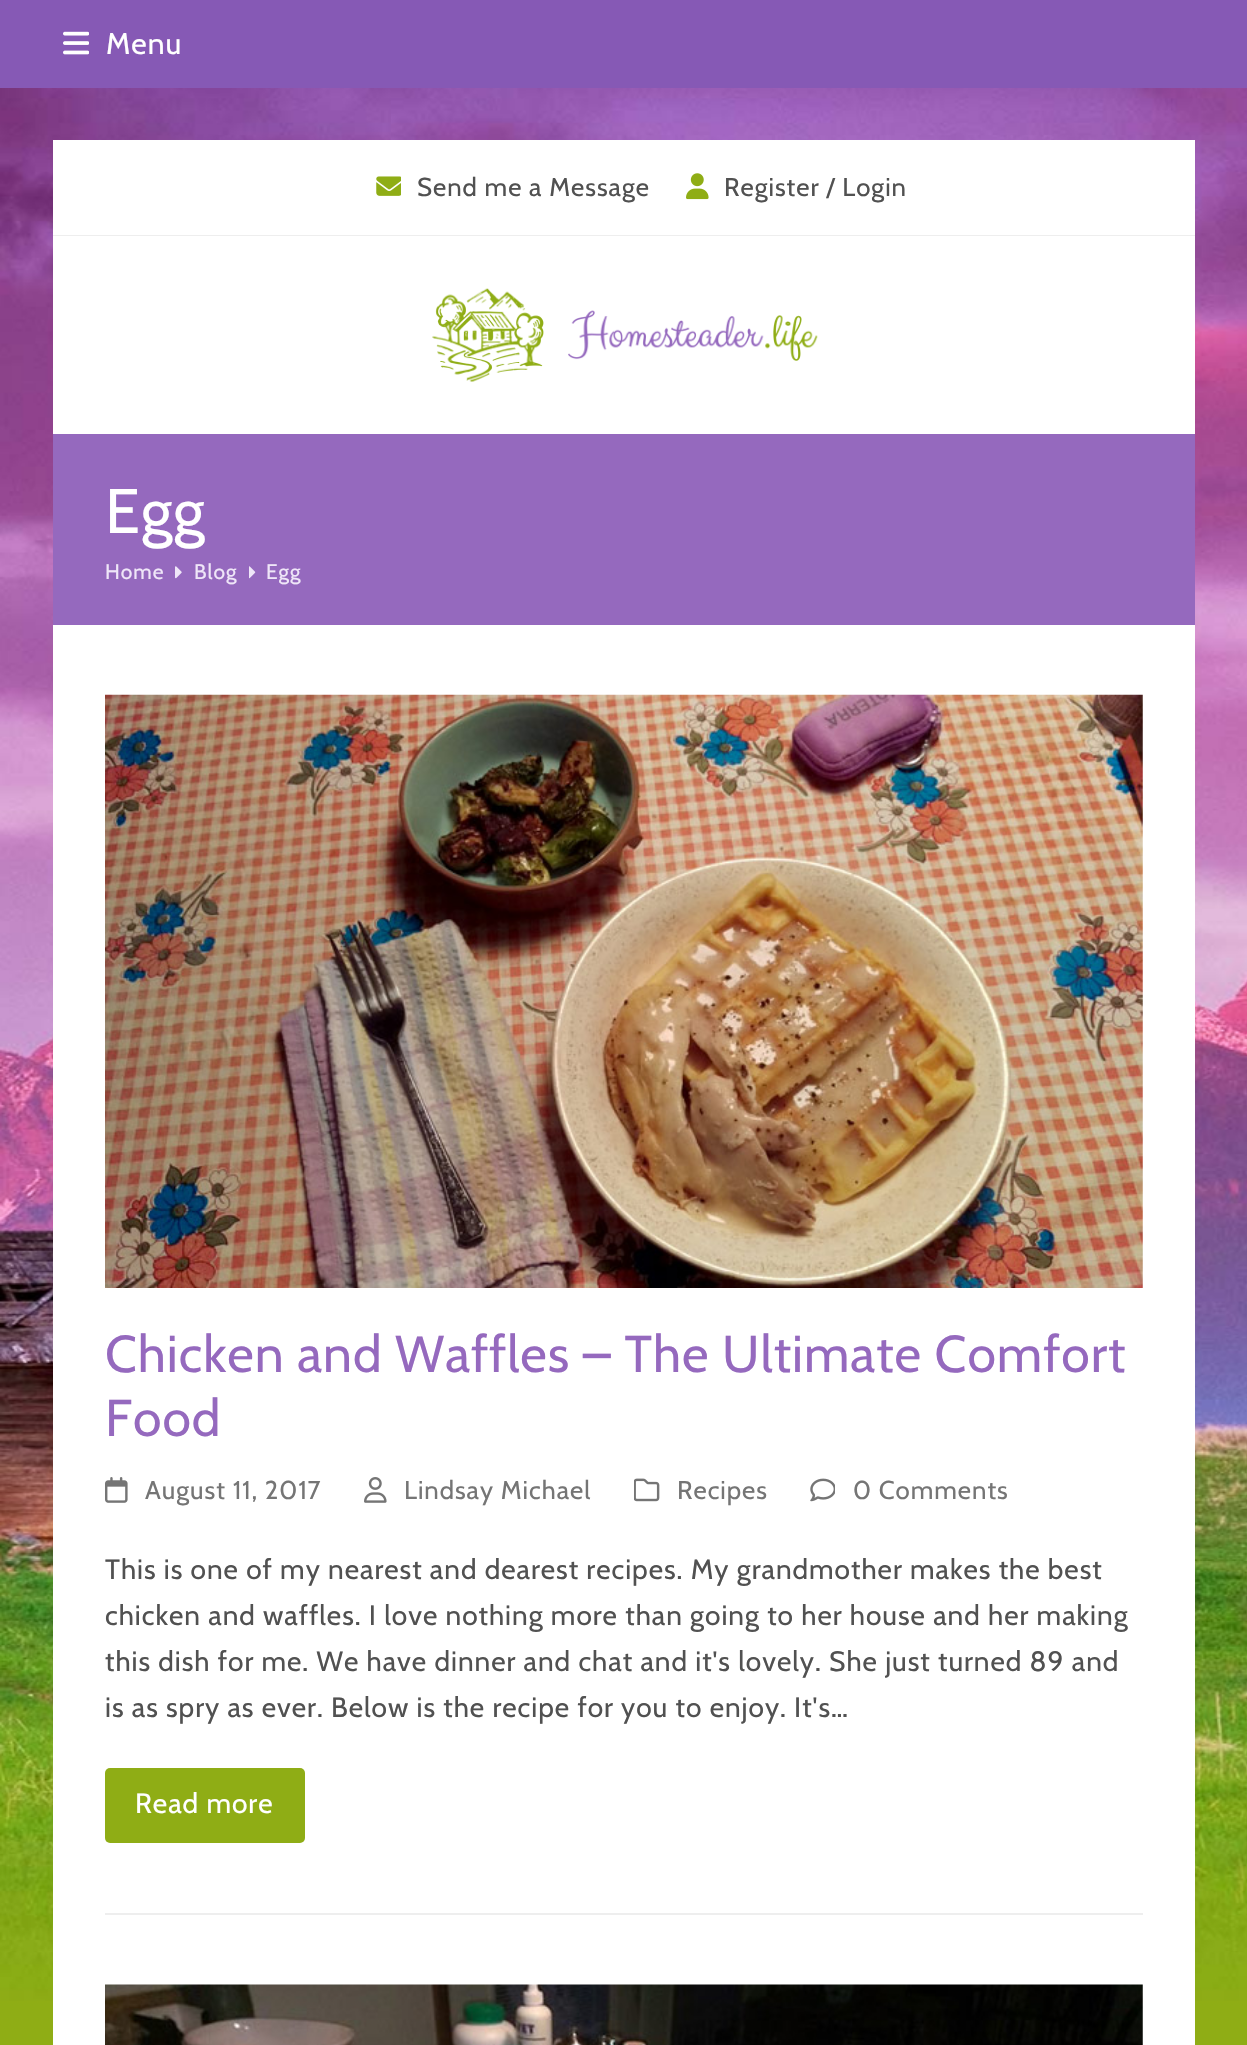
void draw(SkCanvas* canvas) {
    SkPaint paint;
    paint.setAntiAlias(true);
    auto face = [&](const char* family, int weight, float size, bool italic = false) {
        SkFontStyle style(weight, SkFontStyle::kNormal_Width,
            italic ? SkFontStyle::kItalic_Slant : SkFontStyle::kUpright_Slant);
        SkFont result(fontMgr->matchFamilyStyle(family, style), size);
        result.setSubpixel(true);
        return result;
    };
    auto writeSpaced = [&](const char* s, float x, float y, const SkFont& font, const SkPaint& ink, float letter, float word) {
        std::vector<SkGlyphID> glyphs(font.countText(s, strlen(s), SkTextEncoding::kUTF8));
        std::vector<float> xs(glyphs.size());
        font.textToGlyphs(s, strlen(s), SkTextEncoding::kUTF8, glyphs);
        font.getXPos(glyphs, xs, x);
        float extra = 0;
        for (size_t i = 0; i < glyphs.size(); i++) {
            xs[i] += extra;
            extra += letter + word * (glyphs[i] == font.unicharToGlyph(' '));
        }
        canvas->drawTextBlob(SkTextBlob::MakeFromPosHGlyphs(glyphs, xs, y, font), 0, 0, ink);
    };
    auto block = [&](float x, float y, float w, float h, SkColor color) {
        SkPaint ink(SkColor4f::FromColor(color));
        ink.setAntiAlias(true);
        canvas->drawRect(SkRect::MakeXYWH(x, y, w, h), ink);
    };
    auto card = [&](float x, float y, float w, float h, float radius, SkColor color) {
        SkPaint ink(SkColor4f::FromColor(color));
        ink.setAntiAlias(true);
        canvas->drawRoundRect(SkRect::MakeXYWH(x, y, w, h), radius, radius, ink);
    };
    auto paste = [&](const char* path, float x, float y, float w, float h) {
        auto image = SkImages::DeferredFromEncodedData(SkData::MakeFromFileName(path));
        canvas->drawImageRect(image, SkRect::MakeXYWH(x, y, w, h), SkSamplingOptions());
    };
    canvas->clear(SkColorSetRGB(143, 173, 21));
    paste("pic1.png", 0, 88, 1247, 1913);
    block(0, 0, 1247, 88, SkColorSetRGB(134, 89, 181));
    paste("pic2.png", 63, 31, 26, 24);
    auto kFont1 = face("Cabin", 400, 30);
    paint.setColor(SK_ColorWHITE);
    writeSpaced("Menu", 106, 54, kFont1, paint, 0.98f, 0);
    block(53, 140, 1142, 1905, SK_ColorWHITE);
    block(53, 235, 1142, 1, SkColorSetRGB(238, 238, 238));
    paste("pic3.png", 376, 176, 25, 20);
    auto kFont2 = face("Cabin", 400, 25.75f);
    paint.setColor(SkColorSetRGB(81, 81, 81));
    writeSpaced("Send me a Message", 417, 196, kFont2, paint, 0.98f, 0);
    paste("pic4.png", 686, 173, 23, 27);
    writeSpaced("Register / Login", 724, 196, kFont2, paint, 0.98f, 0);
    paste("pic5.png", 432, 288, 386, 94);
    block(53, 434, 1142, 191, SkColorSetRGB(149, 105, 190));
    auto kFont3 = face("Cabin", 400, 63);
    paint.setColor(SK_ColorWHITE);
    writeSpaced("Egg", 105, 533, kFont3, paint, 0.98f, 0);
    auto kFont4 = face("Cabin", 400, 21);
    paint.setColor(SkColorSetRGB(239, 230, 248));
    writeSpaced("Home", 105, 579, kFont4, paint, 0.98f, 0);
    paste("pic6.png", 175, 566, 7, 13);
    writeSpaced("Blog", 194, 579, kFont4, paint, 0.98f, 0);
    paste("pic7.png", 249, 566, 7, 13);
    writeSpaced("Egg", 266, 579, kFont4, paint, 0.98f, 0);
    paste("pic8.png", 105, 694, 1038, 594);
    auto kFont5 = face("Cabin", 400, 51.7f);
    paint.setColor(SkColorSetRGB(149, 105, 190));
    writeSpaced("Chicken and Waffles – The Ultimate Comfort", 105, 1372, kFont5, paint, 0.98f, 0);
    writeSpaced("Food", 105, 1436, kFont5, paint, 0.98f, 0);
    paste("pic9.png", 105, 1477, 23, 26);
    paint.setColor(SkColorSetRGB(117, 117, 117));
    writeSpaced("August 11, 2017", 145, 1499, kFont2, paint, 0.98f, 0);
    paste("pic10.png", 364, 1477, 23, 26);
    writeSpaced("Lindsay Michael", 404, 1499, kFont2, paint, 0.98f, 0);
    paste("pic11.png", 634, 1478, 26, 24);
    writeSpaced("Recipes", 677, 1499, kFont2, paint, 0.98f, 0);
    paste("pic12.png", 810, 1478, 25, 24);
    writeSpaced("0 Comments", 853, 1499, kFont2, paint, 0.98f, 0);
    auto kFont6 = face("Cabin", 400, 28);
    paint.setColor(SkColorSetRGB(81, 81, 81));
    writeSpaced("This is one of my nearest and dearest recipes. My grandmother makes the best", 105, 1579, kFont6, paint, 0.98f, 0);
    writeSpaced("chicken and waffles. I love nothing more than going to her house and her making", 105, 1625, kFont6, paint, 0.98f, 0);
    writeSpaced("this dish for me. We have dinner and chat and it's lovely. She just turned 89 and", 105, 1671, kFont6, paint, 0.98f, 0);
    writeSpaced("is as spry as ever. Below is the recipe for you to enjoy. It's…", 105, 1717, kFont6, paint, 0.98f, 0);
    card(105, 1768, 200, 75, 5, SkColorSetRGB(143, 173, 21));
    paint.setColor(SK_ColorWHITE);
    writeSpaced("Read more", 135, 1813, kFont6, paint, 0.98f, 0);
    block(105, 1913, 1038, 2, SkColorSetRGB(238, 238, 238));
    paste("pic13.png", 105, 1984, 1038, 61);
}
